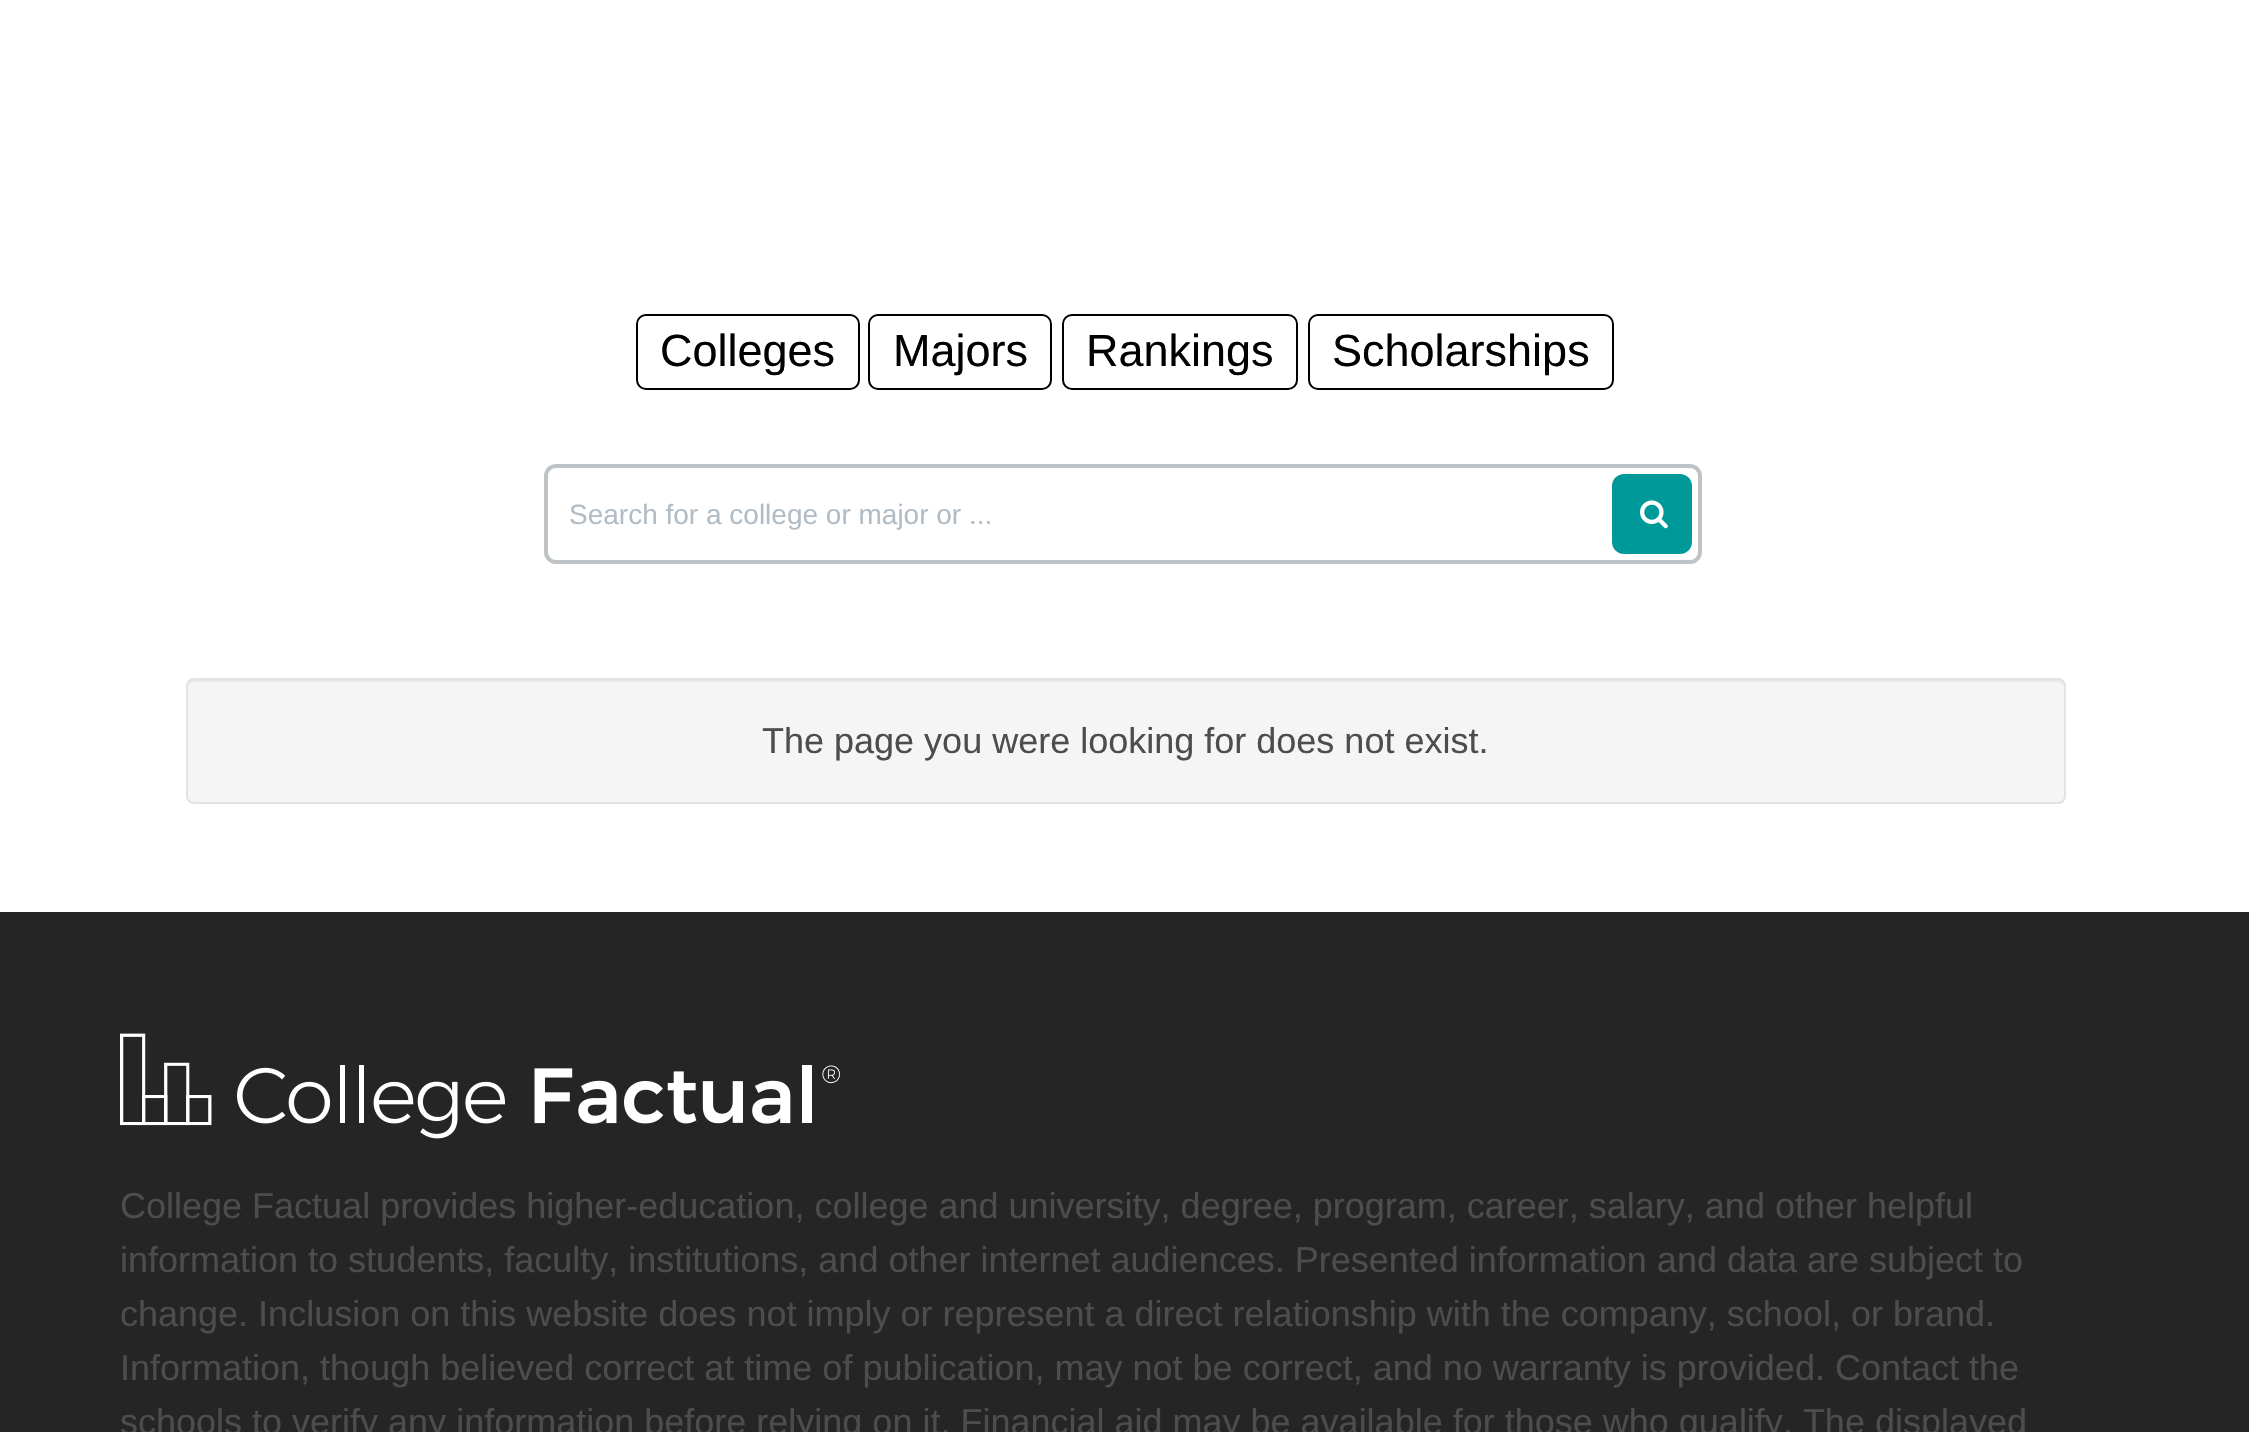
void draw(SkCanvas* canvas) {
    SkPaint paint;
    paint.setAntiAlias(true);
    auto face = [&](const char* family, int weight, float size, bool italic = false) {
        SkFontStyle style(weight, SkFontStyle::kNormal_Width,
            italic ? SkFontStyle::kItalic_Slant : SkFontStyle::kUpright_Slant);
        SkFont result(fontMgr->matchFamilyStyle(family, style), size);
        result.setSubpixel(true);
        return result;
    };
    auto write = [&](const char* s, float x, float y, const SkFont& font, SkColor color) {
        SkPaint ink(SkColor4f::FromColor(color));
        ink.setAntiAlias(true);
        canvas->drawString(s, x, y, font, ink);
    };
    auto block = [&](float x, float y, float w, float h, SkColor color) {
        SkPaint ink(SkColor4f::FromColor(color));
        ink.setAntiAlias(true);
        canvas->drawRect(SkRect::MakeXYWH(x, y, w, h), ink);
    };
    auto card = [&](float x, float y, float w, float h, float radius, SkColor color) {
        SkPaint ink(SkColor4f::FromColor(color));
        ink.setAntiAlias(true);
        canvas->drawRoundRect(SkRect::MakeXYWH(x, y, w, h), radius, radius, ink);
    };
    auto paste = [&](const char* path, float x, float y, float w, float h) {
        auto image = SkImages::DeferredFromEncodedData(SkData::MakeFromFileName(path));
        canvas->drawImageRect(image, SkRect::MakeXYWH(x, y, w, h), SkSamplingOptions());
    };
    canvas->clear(SK_ColorWHITE);
    paint.setStyle(SkPaint::kStroke_Style);
    paint.setStrokeWidth(2);
    paint.setColor(SK_ColorBLACK);
    canvas->drawRoundRect(SkRect::MakeXYWH(637, 315, 222, 74), 9, 9, paint);
    auto kFont1 = face("Liberation Sans", 400, 45);
    write("Colleges", 660, 366, kFont1, SK_ColorBLACK);
    canvas->drawRoundRect(SkRect::MakeXYWH(869, 315, 182, 74), 9, 9, paint);
    write("Majors", 893, 366, kFont1, SK_ColorBLACK);
    canvas->drawRoundRect(SkRect::MakeXYWH(1063, 315, 234, 74), 9, 9, paint);
    write("Rankings", 1086, 366, kFont1, SK_ColorBLACK);
    canvas->drawRoundRect(SkRect::MakeXYWH(1309, 315, 304, 74), 9, 9, paint);
    write("Scholarships", 1332, 366, kFont1, SK_ColorBLACK);
    paint.setStrokeWidth(4);
    paint.setColor(SkColorSetRGB(189, 195, 199));
    canvas->drawRoundRect(SkRect::MakeXYWH(546, 466, 1154, 96), 10, 10, paint);
    auto kFont2 = face("Liberation Sans", 400, 28);
    write("Search for a college or major or ...", 569, 524, kFont2, SkColorSetRGB(178, 188, 197));
    card(1612, 474, 80, 80, 12, SkColorSetRGB(0, 153, 153));
    paste("pic1.png", 1640, 500, 28, 29);
    card(186, 678, 1880, 126, 8, SkColorSetRGB(245, 245, 245));
    paint.setStyle(SkPaint::kFill_Style);
    paint.setColor(SkColorSetRGB(233, 233, 233));
    canvas->drawPath(SkPathBuilder().moveTo(194, 682).lineTo(2058, 682).cubicTo(2061, 682, 2064, 685, 2064, 688).cubicTo(2064, 684, 2063, 680, 2058, 680).lineTo(194, 680).cubicTo(189, 680, 188, 684, 188, 688).cubicTo(188, 685, 191, 682, 194, 682).close().detach(), paint);
    paint.setStyle(SkPaint::kStroke_Style);
    paint.setStrokeWidth(2);
    paint.setColor(SkColorSetRGB(227, 227, 227));
    canvas->drawRoundRect(SkRect::MakeXYWH(187, 679, 1878, 124), 7, 7, paint);
    auto kFont3 = face("Liberation Sans", 400, 36);
    write("The page you were looking for does not exist.", 762, 753, kFont3, SkColorSetRGB(77, 77, 77));
    block(0, 912, 2249, 520, SkColorSetRGB(37, 37, 37));
    paste("pic2.png", 120, 1033, 720, 106);
    write("College Factual provides higher-education, college and university, degree, program, career, salary, and other helpful", 120, 1218, kFont3, SkColorSetRGB(77, 77, 77));
    write("information to students, faculty, institutions, and other internet audiences. Presented information and data are subject to", 120, 1272, kFont3, SkColorSetRGB(77, 77, 77));
    write("change. Inclusion on this website does not imply or represent a direct relationship with the company, school, or brand.", 120, 1326, kFont3, SkColorSetRGB(77, 77, 77));
    write("Information, though believed correct at time of publication, may not be correct, and no warranty is provided. Contact the", 120, 1380, kFont3, SkColorSetRGB(77, 77, 77));
    write("schools to verify any information before relying on it. Financial aid may be available for those who qualify. The displayed", 120, 1434, kFont3, SkColorSetRGB(77, 77, 77));
}
